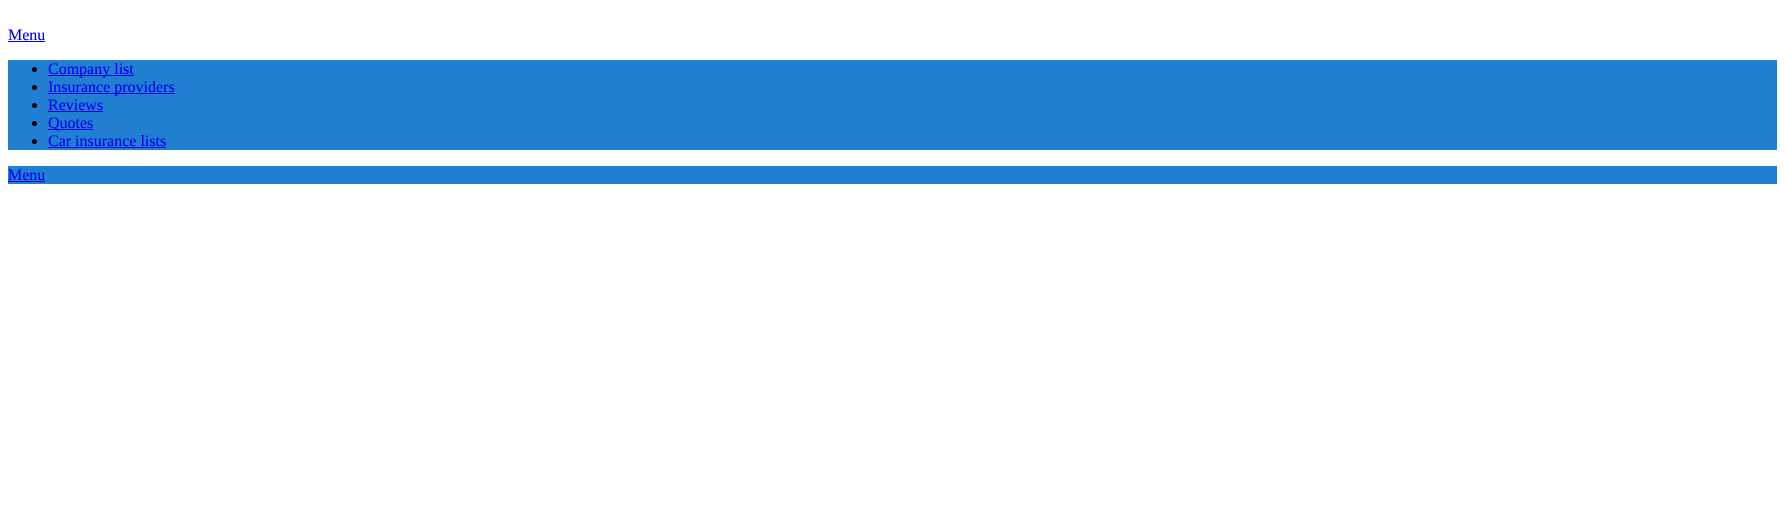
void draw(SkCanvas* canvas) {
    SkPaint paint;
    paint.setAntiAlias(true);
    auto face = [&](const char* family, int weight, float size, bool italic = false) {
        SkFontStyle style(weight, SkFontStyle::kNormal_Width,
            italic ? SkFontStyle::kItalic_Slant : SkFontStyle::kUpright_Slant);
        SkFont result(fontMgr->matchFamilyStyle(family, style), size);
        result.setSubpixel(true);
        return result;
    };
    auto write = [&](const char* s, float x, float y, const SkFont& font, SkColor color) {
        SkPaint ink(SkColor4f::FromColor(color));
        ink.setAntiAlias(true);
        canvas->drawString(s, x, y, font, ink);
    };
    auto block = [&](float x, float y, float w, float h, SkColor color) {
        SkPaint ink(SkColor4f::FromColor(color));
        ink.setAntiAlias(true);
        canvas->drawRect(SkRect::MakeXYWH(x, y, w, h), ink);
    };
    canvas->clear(SK_ColorWHITE);
    auto kFont1 = face("Liberation Serif", 400, 16);
    write("Menu", 8, 40, kFont1, SkColorSetRGB(0, 0, 238));
    block(8, 41, 37, 1, SkColorSetRGB(0, 0, 238));
    block(8, 60, 1769, 90, SkColorSetRGB(33, 127, 209));
    paint.setColor(SK_ColorBLACK);
    canvas->drawCircle(34.5f, 69.5f, 2.5f, paint);
    block(48, 75, 86, 1, SkColorSetRGB(0, 0, 238));
    write("Company list", 48, 74, kFont1, SkColorSetRGB(0, 0, 238));
    canvas->drawCircle(34.5f, 87.5f, 2.5f, paint);
    block(48, 93, 127, 1, SkColorSetRGB(0, 0, 238));
    write("Insurance providers", 48, 92, kFont1, SkColorSetRGB(0, 0, 238));
    canvas->drawCircle(34.5f, 105.5f, 2.5f, paint);
    write("Reviews", 48, 110, kFont1, SkColorSetRGB(0, 0, 238));
    block(48, 111, 55, 1, SkColorSetRGB(0, 0, 238));
    canvas->drawCircle(34.5f, 123.5f, 2.5f, paint);
    block(48, 129, 45, 1, SkColorSetRGB(0, 0, 238));
    write("Quotes", 48, 128, kFont1, SkColorSetRGB(0, 0, 238));
    canvas->drawCircle(34.5f, 141.5f, 2.5f, paint);
    write("Car insurance lists", 48, 146, kFont1, SkColorSetRGB(0, 0, 238));
    block(48, 147, 118, 1, SkColorSetRGB(0, 0, 238));
    block(8, 166, 1769, 18, SkColorSetRGB(33, 127, 209));
    write("Menu", 8, 180, kFont1, SkColorSetRGB(0, 0, 238));
    block(8, 181, 37, 1, SkColorSetRGB(0, 0, 238));
}
